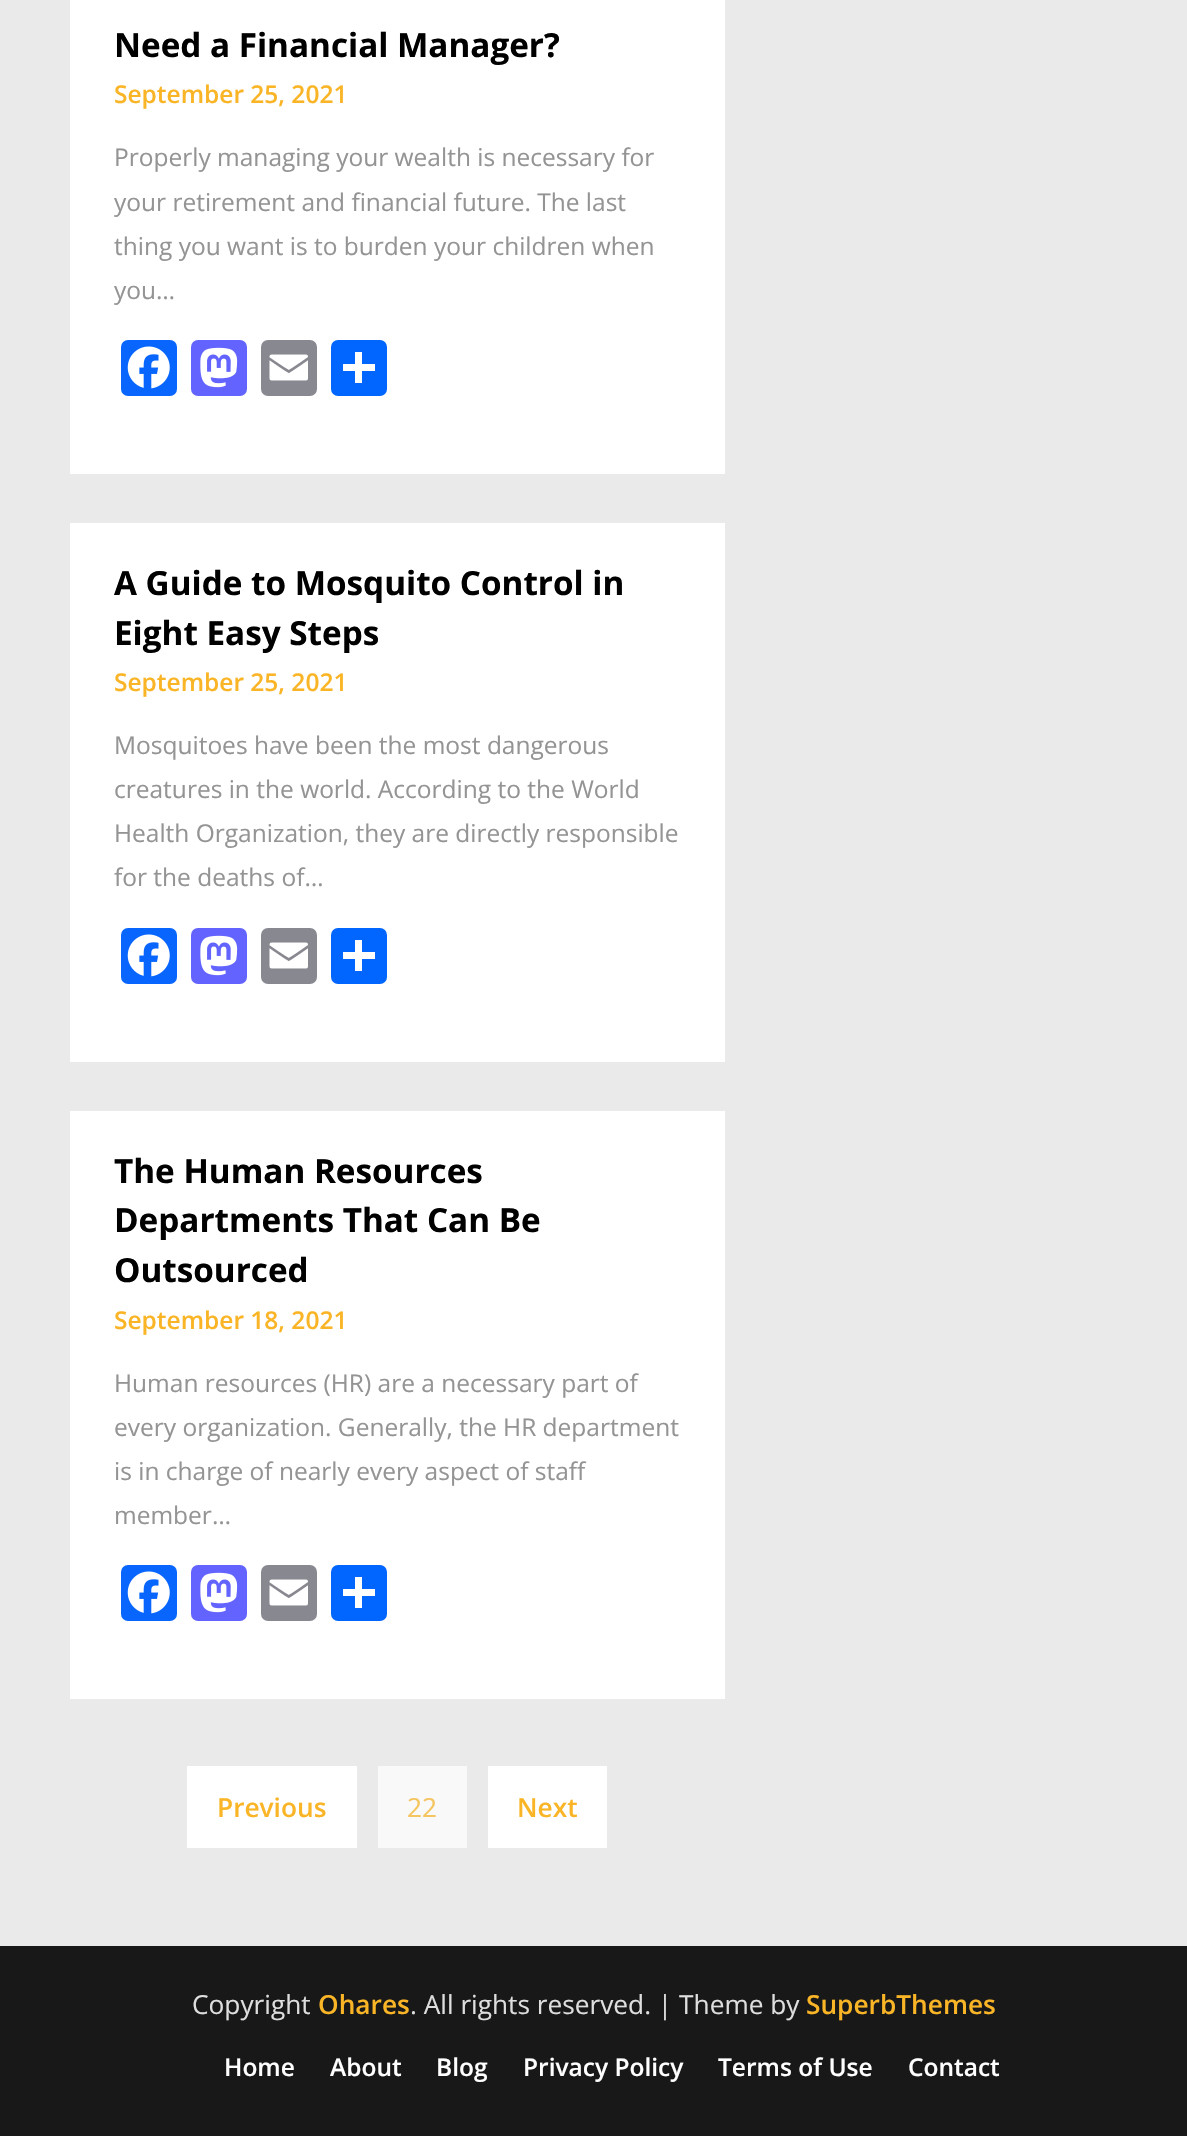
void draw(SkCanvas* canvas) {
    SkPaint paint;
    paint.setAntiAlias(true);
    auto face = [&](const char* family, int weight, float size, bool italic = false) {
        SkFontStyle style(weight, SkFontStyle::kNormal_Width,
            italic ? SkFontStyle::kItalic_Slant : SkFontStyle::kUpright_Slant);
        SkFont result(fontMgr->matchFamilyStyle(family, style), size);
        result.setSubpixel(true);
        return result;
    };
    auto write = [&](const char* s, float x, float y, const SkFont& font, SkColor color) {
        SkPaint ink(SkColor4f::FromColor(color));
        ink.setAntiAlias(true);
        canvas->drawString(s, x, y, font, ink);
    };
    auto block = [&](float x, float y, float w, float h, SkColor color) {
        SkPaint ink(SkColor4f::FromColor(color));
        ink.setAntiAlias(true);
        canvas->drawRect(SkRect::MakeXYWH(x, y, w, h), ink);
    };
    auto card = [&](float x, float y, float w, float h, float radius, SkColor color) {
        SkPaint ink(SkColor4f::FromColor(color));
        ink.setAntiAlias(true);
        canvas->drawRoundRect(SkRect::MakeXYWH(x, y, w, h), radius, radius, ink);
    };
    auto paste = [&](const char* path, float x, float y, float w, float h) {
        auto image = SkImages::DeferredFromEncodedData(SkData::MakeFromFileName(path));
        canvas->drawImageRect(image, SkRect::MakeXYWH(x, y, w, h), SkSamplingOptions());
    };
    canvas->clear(SkColorSetRGB(234, 234, 234));
    block(70, 0, 655, 474, SK_ColorWHITE);
    auto kFont1 = face("Open Sans", 700, 33.25f);
    write("Need a Financial Manager?", 114, 57, kFont1, SK_ColorBLACK);
    auto kFont2 = face("Open Sans", 600, 24.5f);
    write("September 25, 2021", 114, 103, kFont2, SkColorSetRGB(250, 181, 39));
    auto kFont3 = face("Open Sans", 400, 24.5f);
    write("Properly managing your wealth is necessary for", 114, 166, kFont3, SkColorSetRGB(148, 148, 148));
    write("your retirement and financial future. The last", 114, 211, kFont3, SkColorSetRGB(148, 148, 148));
    write("thing you want is to burden your children when", 114, 255, kFont3, SkColorSetRGB(148, 148, 148));
    write("you…", 114, 299, kFont3, SkColorSetRGB(148, 148, 148));
    card(121, 340, 56, 56, 7, SkColorSetRGB(8, 102, 255));
    paste("pic1.png", 127, 346, 43, 43);
    card(191, 340, 56, 56, 7, SkColorSetRGB(99, 100, 255));
    paste("pic2.png", 200, 347, 38, 41);
    card(261, 340, 56, 56, 7, SkColorSetRGB(136, 137, 144));
    paste("pic3.png", 269, 354, 39, 27);
    card(331, 340, 56, 56, 7, SkColorSetRGB(1, 102, 255));
    block(355, 352, 7, 31, SK_ColorWHITE);
    block(343, 364, 32, 7, SK_ColorWHITE);
    block(70, 523, 655, 539, SK_ColorWHITE);
    write("A Guide to Mosquito Control in", 114, 595, kFont1, SK_ColorBLACK);
    write("Eight Easy Steps", 114, 645, kFont1, SK_ColorBLACK);
    write("September 25, 2021", 114, 691, kFont2, SkColorSetRGB(250, 181, 39));
    write("Mosquitoes have been the most dangerous", 114, 754, kFont3, SkColorSetRGB(148, 148, 148));
    write("creatures in the world. According to the World", 114, 798, kFont3, SkColorSetRGB(148, 148, 148));
    write("Health Organization, they are directly responsible", 114, 842, kFont3, SkColorSetRGB(148, 148, 148));
    write("for the deaths of…", 114, 886, kFont3, SkColorSetRGB(148, 148, 148));
    card(121, 928, 56, 56, 7, SkColorSetRGB(8, 102, 255));
    paste("pic1.png", 127, 934, 43, 43);
    card(191, 928, 56, 56, 7, SkColorSetRGB(99, 100, 255));
    paste("pic2.png", 200, 935, 38, 41);
    card(261, 928, 56, 56, 7, SkColorSetRGB(136, 137, 144));
    paste("pic3.png", 269, 942, 39, 27);
    card(331, 928, 56, 56, 7, SkColorSetRGB(1, 102, 255));
    block(355, 940, 7, 31, SK_ColorWHITE);
    block(343, 952, 32, 7, SK_ColorWHITE);
    block(70, 1111, 655, 588, SK_ColorWHITE);
    write("The Human Resources", 114, 1183, kFont1, SK_ColorBLACK);
    write("Departments That Can Be", 114, 1232, kFont1, SK_ColorBLACK);
    write("Outsourced", 114, 1282, kFont1, SK_ColorBLACK);
    write("September 18, 2021", 114, 1329, kFont2, SkColorSetRGB(250, 181, 39));
    write("Human resources (HR) are a necessary part of", 114, 1392, kFont3, SkColorSetRGB(148, 148, 148));
    write("every organization. Generally, the HR department", 114, 1436, kFont3, SkColorSetRGB(148, 148, 148));
    write("is in charge of nearly every aspect of staff", 114, 1480, kFont3, SkColorSetRGB(148, 148, 148));
    write("member…", 114, 1524, kFont3, SkColorSetRGB(148, 148, 148));
    card(121, 1565, 56, 56, 7, SkColorSetRGB(8, 102, 255));
    paste("pic1.png", 127, 1571, 43, 43);
    card(191, 1565, 56, 56, 7, SkColorSetRGB(99, 100, 255));
    paste("pic2.png", 200, 1572, 38, 41);
    card(261, 1565, 56, 56, 7, SkColorSetRGB(136, 137, 144));
    paste("pic3.png", 269, 1579, 39, 27);
    card(331, 1565, 56, 56, 7, SkColorSetRGB(1, 102, 255));
    block(355, 1577, 7, 31, SK_ColorWHITE);
    block(343, 1589, 32, 7, SK_ColorWHITE);
    block(187, 1766, 170, 82, SK_ColorWHITE);
    auto kFont4 = face("Open Sans", 600, 26.25f);
    write("Previous", 217, 1817, kFont4, SkColorSetRGB(250, 181, 39));
    block(378, 1766, 89, 82, SkColorSetRGB(249, 249, 249));
    auto kFont5 = face("Open Sans", 400, 26.25f);
    write("22", 407, 1817, kFont5, SkColorSetRGB(245, 197, 98));
    block(488, 1766, 119, 82, SK_ColorWHITE);
    write("Next", 517, 1817, kFont4, SkColorSetRGB(250, 181, 39));
    block(0, 1946, 1187, 190, SkColorSetRGB(24, 24, 24));
    write("Copyright", 192, 2014, kFont5, SkColorSetRGB(222, 222, 222));
    write("Ohares", 318, 2014, kFont4, SkColorSetRGB(250, 181, 39));
    write(". All rights reserved. | Theme by", 410, 2014, kFont5, SkColorSetRGB(222, 222, 222));
    write("SuperbThemes", 806, 2014, kFont4, SkColorSetRGB(250, 181, 39));
    write("Home", 224, 2076, kFont2, SK_ColorWHITE);
    write("About", 330, 2076, kFont2, SK_ColorWHITE);
    write("Blog", 436, 2076, kFont2, SK_ColorWHITE);
    write("Privacy Policy", 523, 2076, kFont2, SK_ColorWHITE);
    write("Terms of Use", 718, 2076, kFont2, SK_ColorWHITE);
    write("Contact", 908, 2076, kFont2, SK_ColorWHITE);
}
